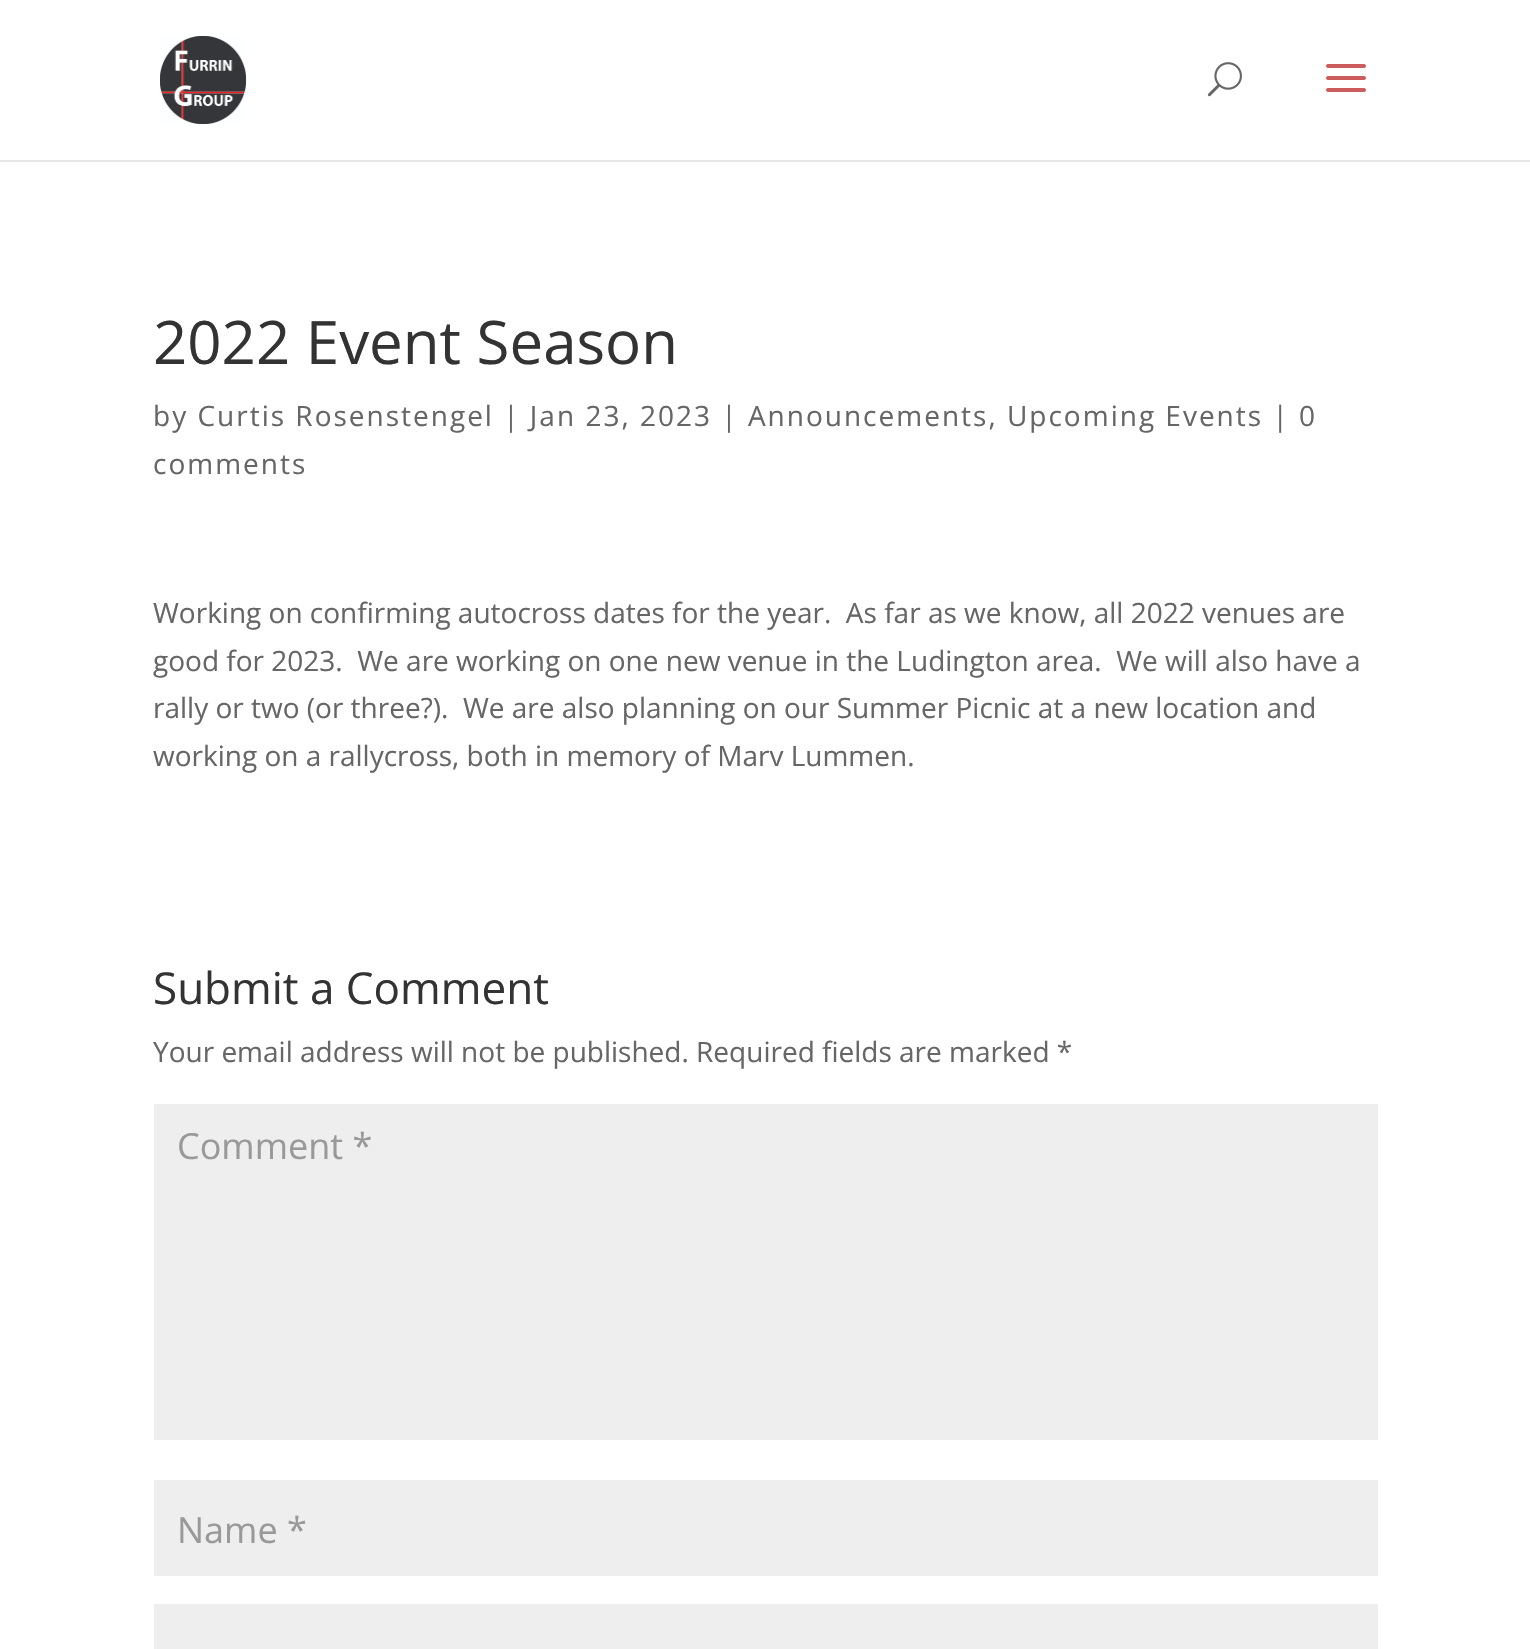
void draw(SkCanvas* canvas) {
    SkPaint paint;
    paint.setAntiAlias(true);
    auto face = [&](const char* family, int weight, float size, bool italic = false) {
        SkFontStyle style(weight, SkFontStyle::kNormal_Width,
            italic ? SkFontStyle::kItalic_Slant : SkFontStyle::kUpright_Slant);
        SkFont result(fontMgr->matchFamilyStyle(family, style), size);
        result.setSubpixel(true);
        return result;
    };
    auto write = [&](const char* s, float x, float y, const SkFont& font, SkColor color) {
        SkPaint ink(SkColor4f::FromColor(color));
        ink.setAntiAlias(true);
        canvas->drawString(s, x, y, font, ink);
    };
    auto writeSpaced = [&](const char* s, float x, float y, const SkFont& font, const SkPaint& ink, float letter, float word) {
        std::vector<SkGlyphID> glyphs(font.countText(s, strlen(s), SkTextEncoding::kUTF8));
        std::vector<float> xs(glyphs.size());
        font.textToGlyphs(s, strlen(s), SkTextEncoding::kUTF8, glyphs);
        font.getXPos(glyphs, xs, x);
        float extra = 0;
        for (size_t i = 0; i < glyphs.size(); i++) {
            xs[i] += extra;
            extra += letter + word * (glyphs[i] == font.unicharToGlyph(' '));
        }
        canvas->drawTextBlob(SkTextBlob::MakeFromPosHGlyphs(glyphs, xs, y, font), 0, 0, ink);
    };
    auto block = [&](float x, float y, float w, float h, SkColor color) {
        SkPaint ink(SkColor4f::FromColor(color));
        ink.setAntiAlias(true);
        canvas->drawRect(SkRect::MakeXYWH(x, y, w, h), ink);
    };
    auto paste = [&](const char* path, float x, float y, float w, float h) {
        auto image = SkImages::DeferredFromEncodedData(SkData::MakeFromFileName(path));
        canvas->drawImageRect(image, SkRect::MakeXYWH(x, y, w, h), SkSamplingOptions());
    };
    canvas->clear(SK_ColorWHITE);
    block(0, 160, 1530, 2, SkColorSetRGB(230, 230, 230));
    paste("pic1.png", 160, 36, 86, 88);
    paste("pic2.png", 1207, 62, 35, 35);
    paste("pic3.png", 1326, 64, 40, 28);
    auto kFont1 = face("Open Sans", 400, 60);
    write("2022 Event Season", 153, 364, kFont1, SkColorSetRGB(51, 51, 51));
    auto kFont2 = face("Open Sans", 400, 28);
    paint.setColor(SkColorSetRGB(102, 102, 102));
    writeSpaced("by Curtis Rosenstengel | Jan 23, 2023 | Announcements, Upcoming Events | 0", 153, 426, kFont2, paint, 2, 0);
    writeSpaced("comments", 153, 474, kFont2, paint, 2, 0);
    write("Working on confirming autocross dates for the year.  As far as we know, all 2022 venues are", 153, 623, kFont2, SkColorSetRGB(102, 102, 102));
    write("good for 2023.  We are working on one new venue in the Ludington area.  We will also have a", 153, 671, kFont2, SkColorSetRGB(102, 102, 102));
    write("rally or two (or three?).  We are also planning on our Summer Picnic at a new location and", 153, 718, kFont2, SkColorSetRGB(102, 102, 102));
    write("working on a rallycross, both in memory of Marv Lummen.", 153, 766, kFont2, SkColorSetRGB(102, 102, 102));
    auto kFont3 = face("Open Sans", 400, 44);
    write("Submit a Comment", 153, 1004, kFont3, SkColorSetRGB(51, 51, 51));
    write("Your email address will not be published. Required fields are marked *", 153, 1062, kFont2, SkColorSetRGB(102, 102, 102));
    block(154, 1104, 1224, 336, SkColorSetRGB(238, 238, 238));
    auto kFont4 = face("Open Sans", 400, 36);
    write("Comment *", 177, 1159, kFont4, SkColorSetRGB(153, 153, 153));
    block(154, 1480, 1224, 96, SkColorSetRGB(238, 238, 238));
    write("Name *", 177, 1543, kFont4, SkColorSetRGB(153, 153, 153));
    block(154, 1604, 1224, 45, SkColorSetRGB(238, 238, 238));
}
